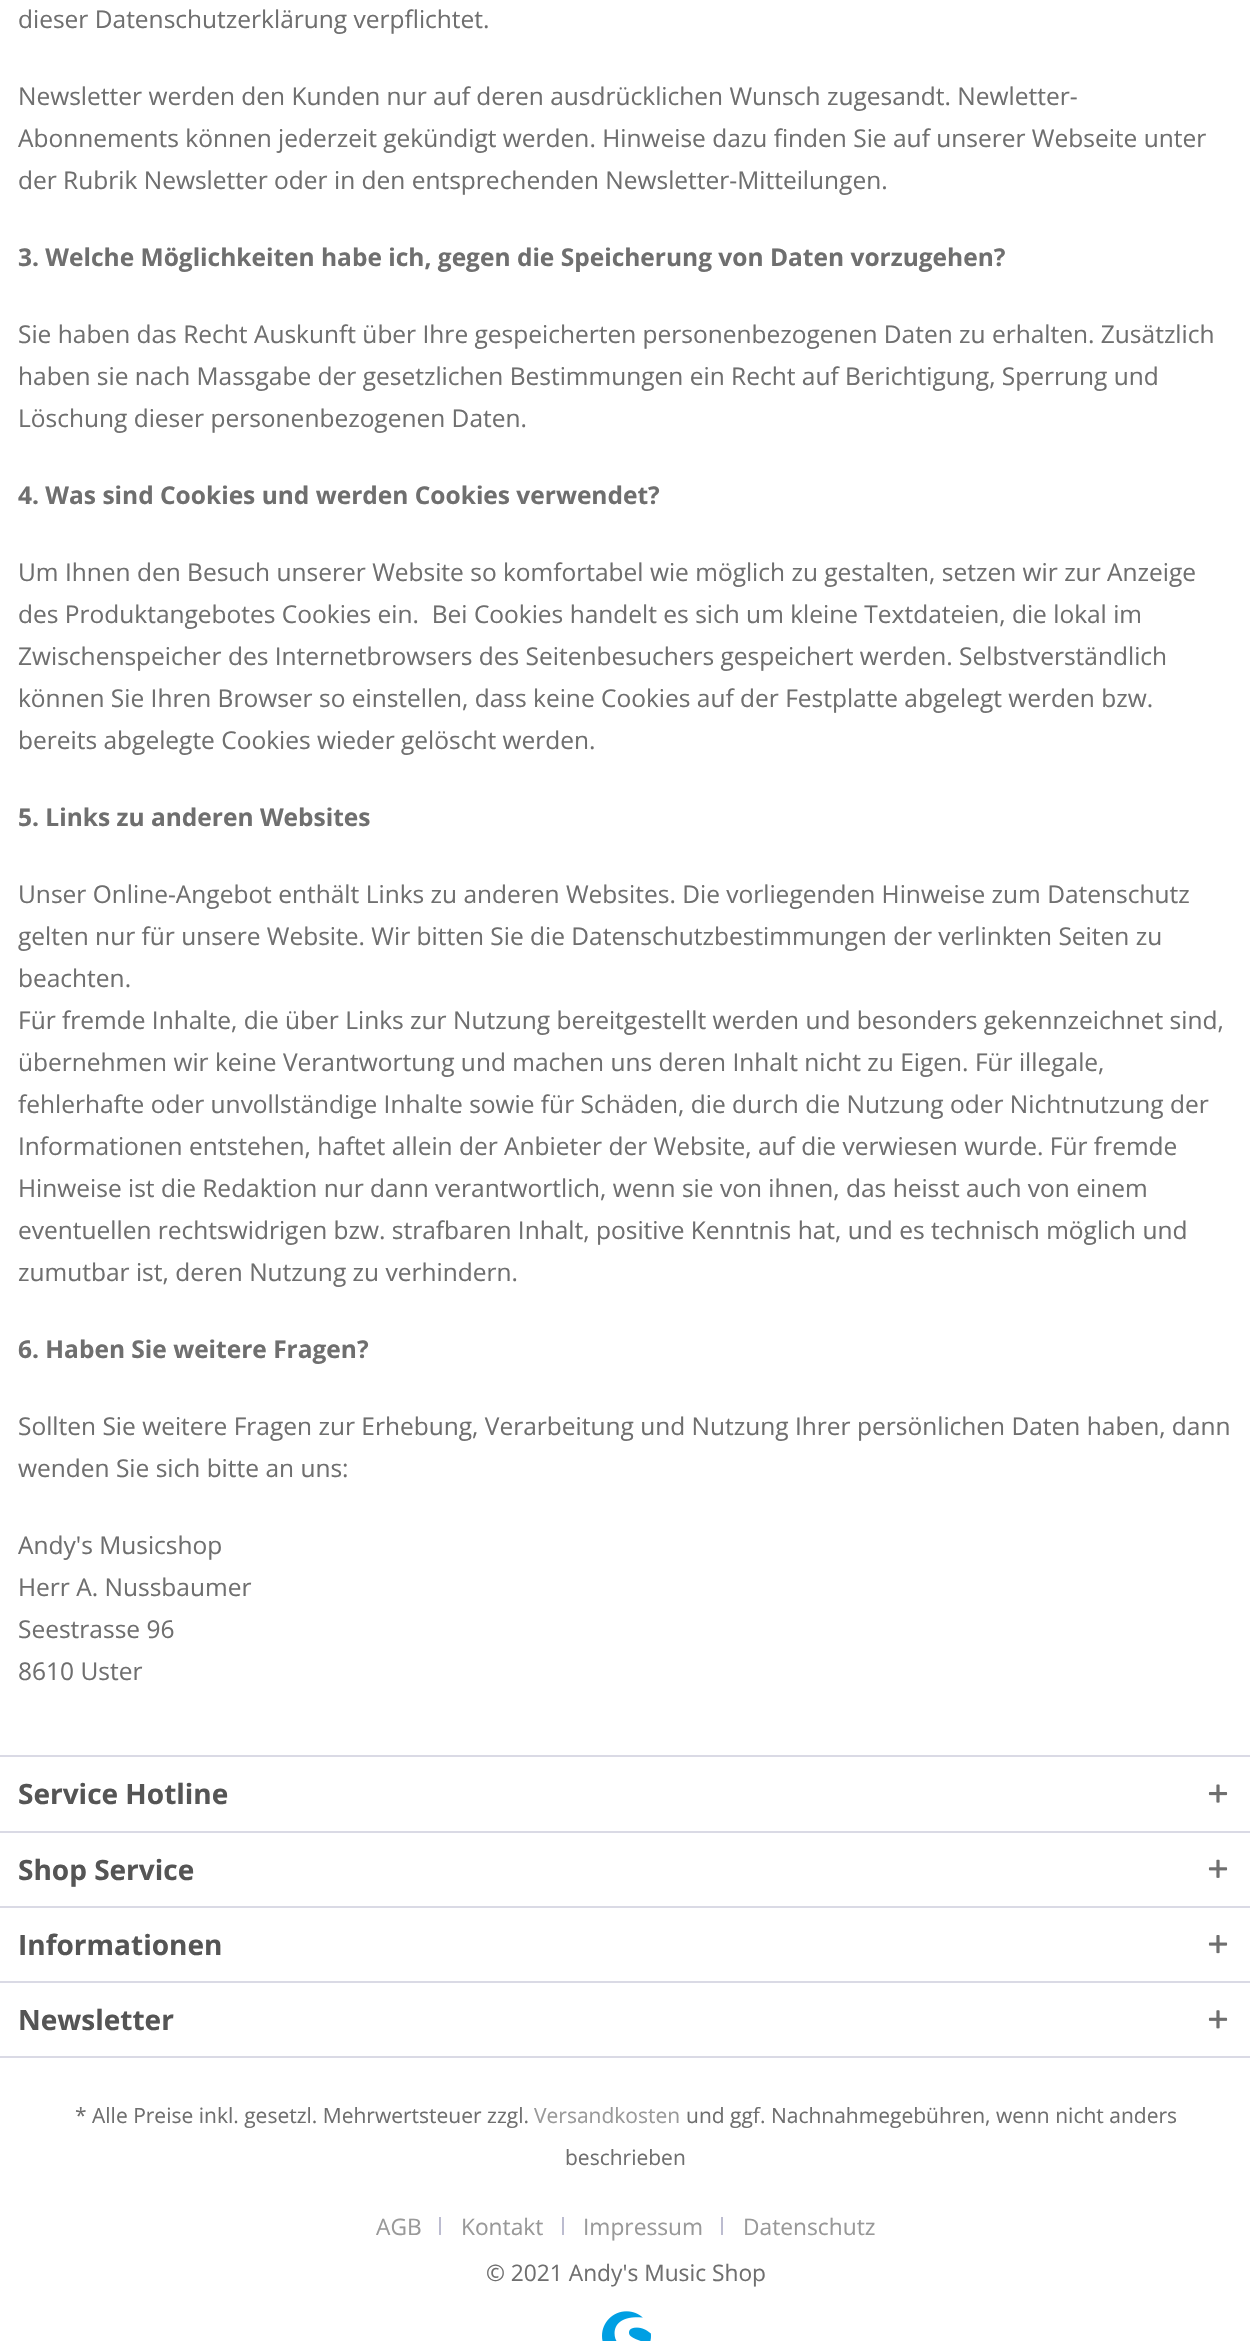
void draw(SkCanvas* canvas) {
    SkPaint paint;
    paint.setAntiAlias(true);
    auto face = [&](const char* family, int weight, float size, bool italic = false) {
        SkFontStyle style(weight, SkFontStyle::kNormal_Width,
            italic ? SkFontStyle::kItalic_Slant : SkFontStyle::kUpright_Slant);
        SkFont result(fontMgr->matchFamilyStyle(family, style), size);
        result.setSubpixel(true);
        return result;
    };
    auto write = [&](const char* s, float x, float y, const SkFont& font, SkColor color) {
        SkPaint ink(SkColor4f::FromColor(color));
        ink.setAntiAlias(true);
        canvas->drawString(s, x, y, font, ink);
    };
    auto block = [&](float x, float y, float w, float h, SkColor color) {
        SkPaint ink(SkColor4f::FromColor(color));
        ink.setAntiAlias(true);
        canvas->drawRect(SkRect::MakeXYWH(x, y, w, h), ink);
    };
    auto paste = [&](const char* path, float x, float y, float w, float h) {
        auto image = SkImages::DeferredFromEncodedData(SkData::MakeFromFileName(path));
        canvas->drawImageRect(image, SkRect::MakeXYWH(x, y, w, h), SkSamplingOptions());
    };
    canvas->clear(SK_ColorWHITE);
    auto kFont1 = face("Open Sans", 400, 24.5f);
    write("dieser Datenschutzerklärung verpflichtet.", 18, 28, kFont1, SkColorSetRGB(111, 111, 111));
    write("Newsletter werden den Kunden nur auf deren ausdrücklichen Wunsch zugesandt. Newletter-", 18, 105, kFont1, SkColorSetRGB(111, 111, 111));
    write("Abonnements können jederzeit gekündigt werden. Hinweise dazu finden Sie auf unserer Webseite unter", 18, 147, kFont1, SkColorSetRGB(111, 111, 111));
    write("der Rubrik Newsletter oder in den entsprechenden Newsletter-Mitteilungen.", 18, 189, kFont1, SkColorSetRGB(111, 111, 111));
    auto kFont2 = face("Open Sans", 700, 24.5f);
    write("3. Welche Möglichkeiten habe ich, gegen die Speicherung von Daten vorzugehen?", 18, 266, kFont2, SkColorSetRGB(111, 111, 111));
    write("Sie haben das Recht Auskunft über Ihre gespeicherten personenbezogenen Daten zu erhalten. Zusätzlich", 18, 343, kFont1, SkColorSetRGB(111, 111, 111));
    write("haben sie nach Massgabe der gesetzlichen Bestimmungen ein Recht auf Berichtigung, Sperrung und", 18, 385, kFont1, SkColorSetRGB(111, 111, 111));
    write("Löschung dieser personenbezogenen Daten.", 18, 427, kFont1, SkColorSetRGB(111, 111, 111));
    write("4. Was sind Cookies und werden Cookies verwendet?", 18, 504, kFont2, SkColorSetRGB(111, 111, 111));
    write("Um Ihnen den Besuch unserer Website so komfortabel wie möglich zu gestalten, setzen wir zur Anzeige", 18, 581, kFont1, SkColorSetRGB(111, 111, 111));
    write("des Produktangebotes Cookies ein.  Bei Cookies handelt es sich um kleine Textdateien, die lokal im", 18, 623, kFont1, SkColorSetRGB(111, 111, 111));
    write("Zwischenspeicher des Internetbrowsers des Seitenbesuchers gespeichert werden. Selbstverständlich", 18, 665, kFont1, SkColorSetRGB(111, 111, 111));
    write("können Sie Ihren Browser so einstellen, dass keine Cookies auf der Festplatte abgelegt werden bzw.", 18, 707, kFont1, SkColorSetRGB(111, 111, 111));
    write("bereits abgelegte Cookies wieder gelöscht werden.", 18, 749, kFont1, SkColorSetRGB(111, 111, 111));
    write("5. Links zu anderen Websites", 18, 826, kFont2, SkColorSetRGB(111, 111, 111));
    write("Unser Online-Angebot enthält Links zu anderen Websites. Die vorliegenden Hinweise zum Datenschutz", 18, 903, kFont1, SkColorSetRGB(111, 111, 111));
    write("gelten nur für unsere Website. Wir bitten Sie die Datenschutzbestimmungen der verlinkten Seiten zu", 18, 945, kFont1, SkColorSetRGB(111, 111, 111));
    write("beachten.", 18, 987, kFont1, SkColorSetRGB(111, 111, 111));
    write("Für fremde Inhalte, die über Links zur Nutzung bereitgestellt werden und besonders gekennzeichnet sind,", 18, 1029, kFont1, SkColorSetRGB(111, 111, 111));
    write("übernehmen wir keine Verantwortung und machen uns deren Inhalt nicht zu Eigen. Für illegale,", 18, 1071, kFont1, SkColorSetRGB(111, 111, 111));
    write("fehlerhafte oder unvollständige Inhalte sowie für Schäden, die durch die Nutzung oder Nichtnutzung der", 18, 1113, kFont1, SkColorSetRGB(111, 111, 111));
    write("Informationen entstehen, haftet allein der Anbieter der Website, auf die verwiesen wurde. Für fremde", 18, 1155, kFont1, SkColorSetRGB(111, 111, 111));
    write("Hinweise ist die Redaktion nur dann verantwortlich, wenn sie von ihnen, das heisst auch von einem", 18, 1197, kFont1, SkColorSetRGB(111, 111, 111));
    write("eventuellen rechtswidrigen bzw. strafbaren Inhalt, positive Kenntnis hat, und es technisch möglich und", 18, 1239, kFont1, SkColorSetRGB(111, 111, 111));
    write("zumutbar ist, deren Nutzung zu verhindern.", 18, 1281, kFont1, SkColorSetRGB(111, 111, 111));
    write("6. Haben Sie weitere Fragen?", 18, 1358, kFont2, SkColorSetRGB(111, 111, 111));
    write("Sollten Sie weitere Fragen zur Erhebung, Verarbeitung und Nutzung Ihrer persönlichen Daten haben, dann", 18, 1435, kFont1, SkColorSetRGB(111, 111, 111));
    write("wenden Sie sich bitte an uns:", 18, 1477, kFont1, SkColorSetRGB(111, 111, 111));
    write("Andy's Musicshop", 18, 1554, kFont1, SkColorSetRGB(111, 111, 111));
    write("Herr A. Nussbaumer", 18, 1596, kFont1, SkColorSetRGB(111, 111, 111));
    write("Seestrasse 96", 18, 1638, kFont1, SkColorSetRGB(111, 111, 111));
    write("8610 Uster", 18, 1680, kFont1, SkColorSetRGB(111, 111, 111));
    block(0, 1755, 1250, 2, SkColorSetRGB(218, 218, 229));
    auto kFont3 = face("Open Sans", 700, 28);
    write("Service Hotline", 18, 1804, kFont3, SkColorSetRGB(85, 85, 85));
    paste("pic1.png", 1208, 1784, 20, 19);
    block(0, 1831, 1250, 2, SkColorSetRGB(218, 218, 229));
    write("Shop Service", 18, 1880, kFont3, SkColorSetRGB(85, 85, 85));
    paste("pic2.png", 1208, 1859, 20, 19);
    block(0, 1906, 1250, 2, SkColorSetRGB(218, 218, 229));
    write("Informationen", 18, 1955, kFont3, SkColorSetRGB(85, 85, 85));
    paste("pic3.png", 1208, 1935, 20, 19);
    block(0, 1981, 1250, 2, SkColorSetRGB(218, 218, 229));
    block(0, 2056, 1250, 2, SkColorSetRGB(218, 218, 229));
    write("Newsletter", 18, 2030, kFont3, SkColorSetRGB(85, 85, 85));
    paste("pic4.png", 1208, 2010, 20, 19);
    auto kFont4 = face("Open Sans", 400, 21);
    write("* Alle Preise inkl. gesetzl. Mehrwertsteuer zzgl.", 75, 2123, kFont4, SkColorSetRGB(111, 111, 111));
    write("Versandkosten", 534, 2123, kFont4, SkColorSetRGB(153, 153, 153));
    write("und ggf. Nachnahmegebühren, wenn nicht anders", 686, 2123, kFont4, SkColorSetRGB(111, 111, 111));
    write("beschrieben", 565, 2165, kFont4, SkColorSetRGB(111, 111, 111));
    auto kFont5 = face("Open Sans", 400, 22.75f);
    write("AGB", 376, 2235, kFont5, SkColorSetRGB(153, 153, 153));
    block(439, 2217, 2, 18, SkColorSetRGB(188, 188, 208));
    write("Kontakt", 461, 2235, kFont5, SkColorSetRGB(153, 153, 153));
    block(562, 2217, 2, 18, SkColorSetRGB(188, 188, 208));
    write("Impressum", 583, 2235, kFont5, SkColorSetRGB(153, 153, 153));
    block(721, 2217, 2, 18, SkColorSetRGB(188, 188, 208));
    write("Datenschutz", 743, 2235, kFont5, SkColorSetRGB(153, 153, 153));
    write("© 2021 Andy's Music Shop", 486, 2281, kFont5, SkColorSetRGB(111, 111, 111));
    paste("pic5.png", 602, 2311, 49, 30);
}
